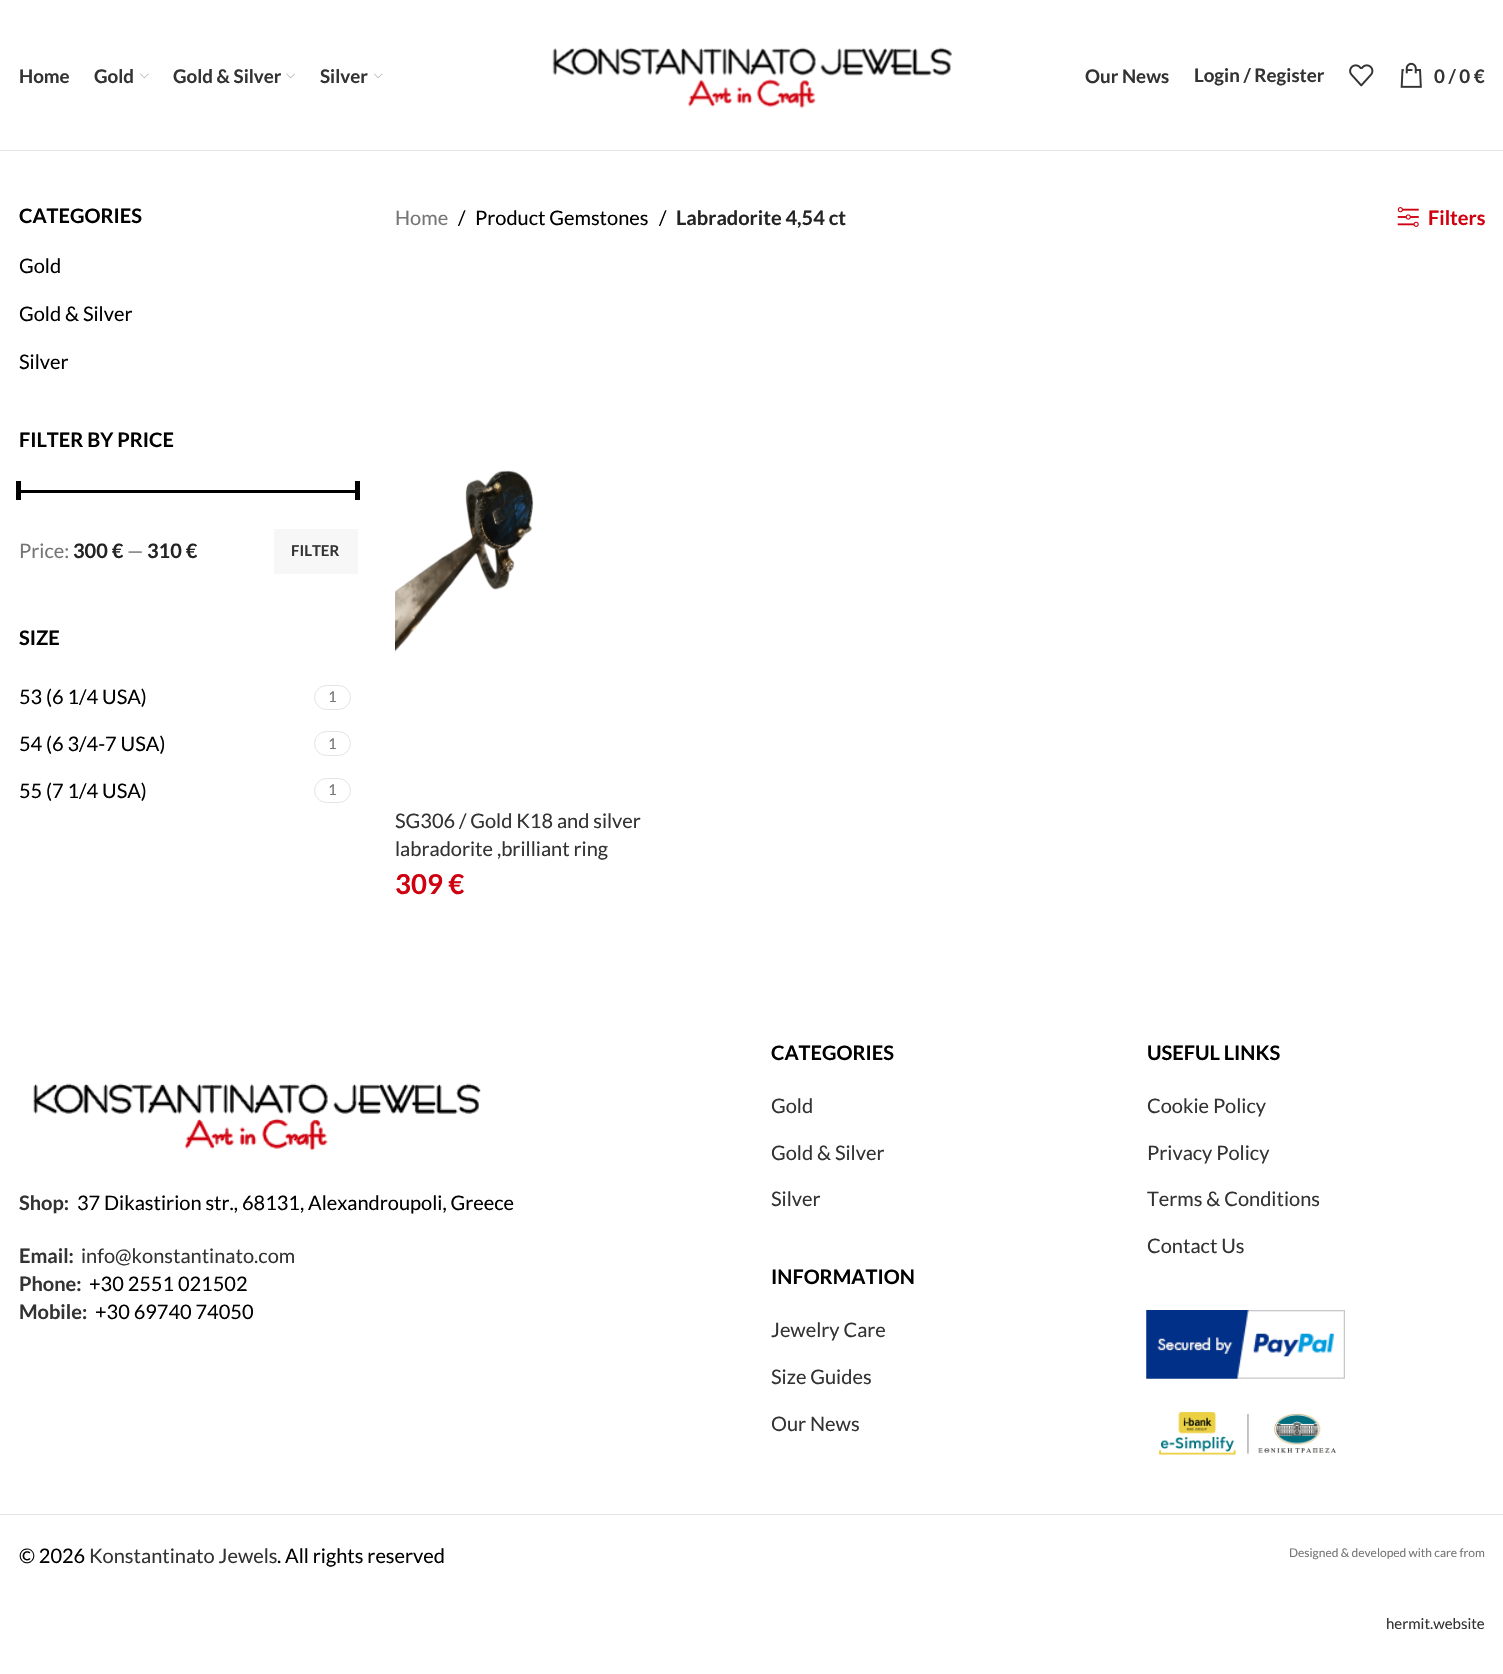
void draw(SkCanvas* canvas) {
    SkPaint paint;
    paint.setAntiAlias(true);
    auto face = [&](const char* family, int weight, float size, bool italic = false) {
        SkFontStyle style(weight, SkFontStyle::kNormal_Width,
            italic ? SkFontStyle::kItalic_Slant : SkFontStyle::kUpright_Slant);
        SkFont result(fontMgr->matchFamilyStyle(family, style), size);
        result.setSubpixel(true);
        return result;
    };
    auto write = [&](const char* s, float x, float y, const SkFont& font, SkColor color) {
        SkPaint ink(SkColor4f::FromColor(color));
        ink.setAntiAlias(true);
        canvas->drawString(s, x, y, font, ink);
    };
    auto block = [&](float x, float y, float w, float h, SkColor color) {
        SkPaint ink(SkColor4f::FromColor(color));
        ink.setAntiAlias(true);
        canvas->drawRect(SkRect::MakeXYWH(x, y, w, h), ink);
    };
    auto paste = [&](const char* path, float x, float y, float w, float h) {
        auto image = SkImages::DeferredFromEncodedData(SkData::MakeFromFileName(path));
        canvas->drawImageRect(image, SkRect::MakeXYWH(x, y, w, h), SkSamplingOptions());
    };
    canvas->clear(SK_ColorWHITE);
    block(0, 150, 1503, 1, SkColorSetRGB(230, 230, 230));
    auto kFont1 = face("Lato", 700, 18.75f);
    write("Home", 19, 83, kFont1, SkColorSetRGB(51, 51, 51));
    write("Gold", 94, 83, kFont1, SkColorSetRGB(51, 51, 51));
    paste("pic1.png", 140, 73, 9, 6);
    write("Gold & Silver", 173, 83, kFont1, SkColorSetRGB(51, 51, 51));
    paste("pic2.png", 286, 73, 9, 6);
    write("Silver", 320, 83, kFont1, SkColorSetRGB(51, 51, 51));
    paste("pic3.png", 374, 73, 9, 6);
    paste("pic4.png", 552, 47, 400, 62);
    write("Our News", 1085, 83, kFont1, SkColorSetRGB(51, 51, 51));
    write("Login / Register", 1194, 82, kFont1, SkColorSetRGB(51, 51, 51));
    paste("pic5.png", 1349, 64, 25, 23);
    paste("pic6.png", 1400, 62, 22, 26);
    write("0 / 0 €", 1434, 83, kFont1, SkColorSetRGB(51, 51, 51));
    auto kFont2 = face("Lato", 700, 20);
    write("CATEGORIES", 19, 223, kFont2, SkColorSetRGB(1, 1, 1));
    auto kFont3 = face("Lato", 400, 20);
    write("Gold", 19, 273, kFont3, SkColorSetRGB(1, 1, 1));
    write("Gold & Silver", 19, 321, kFont3, SkColorSetRGB(1, 1, 1));
    write("Silver", 19, 369, kFont3, SkColorSetRGB(1, 1, 1));
    write("FILTER BY PRICE", 19, 447, kFont2, SkColorSetRGB(1, 1, 1));
    block(19, 490, 339, 3, SK_ColorBLACK);
    block(16, 481, 5, 19, SK_ColorBLACK);
    block(355, 481, 5, 19, SK_ColorBLACK);
    write("Price:", 19, 558, kFont3, SkColorSetRGB(118, 118, 118));
    write("300 €", 73, 558, kFont2, SkColorSetRGB(36, 36, 36));
    write("—", 127, 558, kFont3, SkColorSetRGB(118, 118, 118));
    write("310 €", 147, 558, kFont2, SkColorSetRGB(36, 36, 36));
    block(274, 529, 84, 45, SkColorSetRGB(247, 247, 247));
    auto kFont4 = face("Lato", 700, 15);
    write("FILTER", 291, 556, kFont4, SkColorSetRGB(51, 51, 51));
    write("SIZE", 19, 645, kFont2, SkColorSetRGB(1, 1, 1));
    write("53 (6 1/4 USA)", 19, 704, kFont3, SkColorSetRGB(1, 1, 1));
    paint.setStyle(SkPaint::kStroke_Style);
    paint.setStrokeWidth(1);
    paint.setColor(SkColorSetRGB(228, 228, 228));
    canvas->drawRoundRect(SkRect::MakeXYWH(314.5f, 685.5f, 36, 24), 12, 12, paint);
    auto kFont5 = face("Lato", 400, 15);
    write("1", 328, 702, kFont5, SkColorSetRGB(118, 118, 118));
    write("54 (6 3/4-7 USA)", 19, 751, kFont3, SkColorSetRGB(1, 1, 1));
    canvas->drawRoundRect(SkRect::MakeXYWH(314.5f, 731.5f, 36, 24), 12, 12, paint);
    write("1", 328, 749, kFont5, SkColorSetRGB(118, 118, 118));
    write("55 (7 1/4 USA)", 19, 798, kFont3, SkColorSetRGB(1, 1, 1));
    canvas->drawRoundRect(SkRect::MakeXYWH(314.5f, 778.5f, 36, 24), 12, 12, paint);
    write("1", 328, 795, kFont5, SkColorSetRGB(118, 118, 118));
    write("Home", 395, 225, kFont3, SkColorSetRGB(118, 118, 118));
    write("/", 458, 225, kFont3, SkColorSetRGB(1, 1, 1));
    write("Product Gemstones", 475, 225, kFont3, SkColorSetRGB(1, 1, 1));
    write("/", 659, 225, kFont3, SkColorSetRGB(1, 1, 1));
    write("Labradorite 4,54 ct", 676, 225, kFont2, SkColorSetRGB(36, 36, 36));
    paste("pic7.png", 1397, 207, 22, 20);
    write("Filters", 1428, 225, kFont2, SkColorSetRGB(207, 0, 15));
    paste("pic8.png", 395, 470, 139, 182);
    write("SG306 / Gold K18 and silver", 395, 828, kFont3, SkColorSetRGB(51, 51, 51));
    write("labradorite ,brilliant ring", 395, 856, kFont3, SkColorSetRGB(51, 51, 51));
    auto kFont6 = face("Lato", 700, 27.5f);
    write("309 €", 395, 894, kFont6, SkColorSetRGB(207, 0, 15));
    paste("pic9.png", 33, 1083, 448, 68);
    write("Shop:", 19, 1210, kFont2, SkColorSetRGB(51, 51, 51));
    write("37 Dikastirion str., 68131, Alexandroupoli, Greece", 77, 1210, kFont3, SkColorSetRGB(1, 1, 1));
    write("Email:", 19, 1263, kFont2, SkColorSetRGB(51, 51, 51));
    write("info@konstantinato.com", 81, 1263, kFont3, SkColorSetRGB(51, 51, 51));
    write("Phone:", 19, 1291, kFont2, SkColorSetRGB(51, 51, 51));
    write("+30 2551 021502", 89, 1291, kFont3, SkColorSetRGB(1, 1, 1));
    write("Mobile:", 19, 1319, kFont2, SkColorSetRGB(51, 51, 51));
    write("+30 69740 74050", 95, 1319, kFont3, SkColorSetRGB(1, 1, 1));
    write("CATEGORIES", 771, 1060, kFont2, SkColorSetRGB(1, 1, 1));
    write("Gold", 771, 1113, kFont3, SkColorSetRGB(51, 51, 51));
    write("Gold & Silver", 771, 1160, kFont3, SkColorSetRGB(51, 51, 51));
    write("Silver", 771, 1206, kFont3, SkColorSetRGB(51, 51, 51));
    write("INFORMATION", 771, 1284, kFont2, SkColorSetRGB(1, 1, 1));
    write("Jewelry Care", 771, 1337, kFont3, SkColorSetRGB(51, 51, 51));
    write("Size Guides", 771, 1384, kFont3, SkColorSetRGB(51, 51, 51));
    write("Our News", 771, 1431, kFont3, SkColorSetRGB(51, 51, 51));
    write("USEFUL LINKS", 1147, 1060, kFont2, SkColorSetRGB(1, 1, 1));
    write("Cookie Policy", 1147, 1113, kFont3, SkColorSetRGB(51, 51, 51));
    write("Privacy Policy", 1147, 1160, kFont3, SkColorSetRGB(51, 51, 51));
    write("Terms & Conditions", 1147, 1206, kFont3, SkColorSetRGB(51, 51, 51));
    write("Contact Us", 1147, 1253, kFont3, SkColorSetRGB(51, 51, 51));
    paste("pic10.png", 1146, 1310, 199, 69);
    paste("pic11.png", 1159, 1412, 177, 43);
    block(0, 1514, 1503, 1, SkColorSetRGB(228, 228, 228));
    write("© 2026", 19, 1563, kFont3, SkColorSetRGB(1, 1, 1));
    write("Konstantinato Jewels", 89, 1563, kFont3, SkColorSetRGB(51, 51, 51));
    write(". All rights reserved", 277, 1563, kFont3, SkColorSetRGB(1, 1, 1));
    auto kFont7 = face("Lato", 400, 12);
    write("Designed & developed with care from", 1289, 1557, kFont7, SkColorSetRGB(118, 118, 118));
    write("hermit.website", 1386, 1629, kFont5, SkColorSetRGB(51, 51, 51));
}
